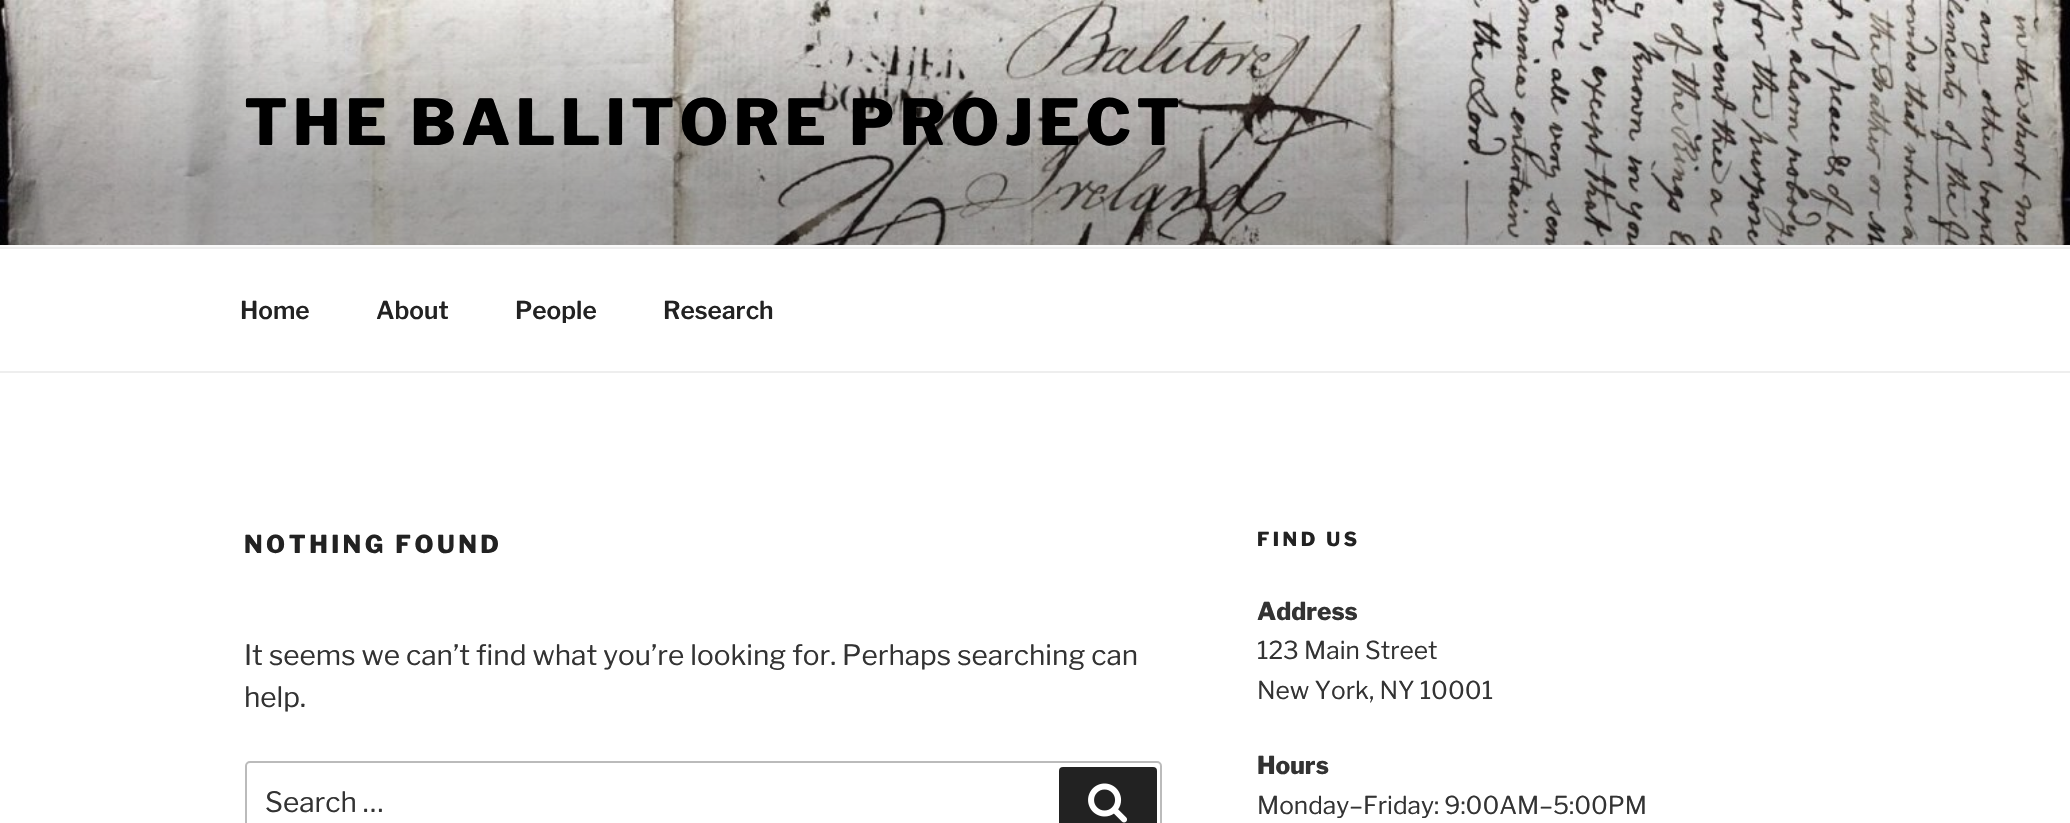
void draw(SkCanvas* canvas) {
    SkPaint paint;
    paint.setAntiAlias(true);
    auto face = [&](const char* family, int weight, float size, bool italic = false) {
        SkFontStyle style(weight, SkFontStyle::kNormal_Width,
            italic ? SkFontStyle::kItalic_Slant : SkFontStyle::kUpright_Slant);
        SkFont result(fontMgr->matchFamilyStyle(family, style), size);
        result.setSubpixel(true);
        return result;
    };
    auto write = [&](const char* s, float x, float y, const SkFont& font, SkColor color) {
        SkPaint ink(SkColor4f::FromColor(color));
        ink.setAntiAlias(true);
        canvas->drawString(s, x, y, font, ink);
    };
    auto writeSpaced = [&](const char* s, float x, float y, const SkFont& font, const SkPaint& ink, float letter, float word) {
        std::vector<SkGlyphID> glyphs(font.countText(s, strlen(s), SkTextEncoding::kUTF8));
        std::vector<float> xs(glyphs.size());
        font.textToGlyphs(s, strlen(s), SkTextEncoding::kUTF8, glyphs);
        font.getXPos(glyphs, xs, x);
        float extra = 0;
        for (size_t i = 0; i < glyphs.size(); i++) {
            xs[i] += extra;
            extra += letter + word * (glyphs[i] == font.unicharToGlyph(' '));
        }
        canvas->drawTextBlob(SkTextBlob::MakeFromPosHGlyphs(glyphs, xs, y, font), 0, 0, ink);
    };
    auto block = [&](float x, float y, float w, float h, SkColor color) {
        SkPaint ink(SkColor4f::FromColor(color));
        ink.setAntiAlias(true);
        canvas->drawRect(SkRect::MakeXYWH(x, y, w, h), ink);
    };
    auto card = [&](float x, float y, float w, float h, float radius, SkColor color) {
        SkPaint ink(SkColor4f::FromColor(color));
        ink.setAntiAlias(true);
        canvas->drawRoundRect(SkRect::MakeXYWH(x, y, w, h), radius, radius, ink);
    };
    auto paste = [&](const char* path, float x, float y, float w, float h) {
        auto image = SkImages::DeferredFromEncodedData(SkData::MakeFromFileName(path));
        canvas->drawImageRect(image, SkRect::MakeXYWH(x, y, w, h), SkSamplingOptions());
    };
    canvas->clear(SK_ColorWHITE);
    block(0, 245, 2070, 2, SkColorSetRGB(250, 250, 250));
    paste("pic1.png", 0, 0, 2070, 245);
    auto kFont1 = face("Libre Franklin", 800, 63);
    paint.setColor(SK_ColorBLACK);
    writeSpaced("THE BALLITORE PROJECT", 244, 145, kFont1, paint, 5, 0);
    block(0, 247, 2070, 2, SkColorSetRGB(238, 238, 238));
    block(0, 371, 2070, 2, SkColorSetRGB(238, 238, 238));
    auto kFont2 = face("Libre Franklin", 600, 24.5f);
    write("Home", 240, 319, kFont2, SkColorSetRGB(34, 34, 34));
    write("About", 376, 319, kFont2, SkColorSetRGB(34, 34, 34));
    write("People", 515, 319, kFont2, SkColorSetRGB(34, 34, 34));
    write("Research", 663, 319, kFont2, SkColorSetRGB(34, 34, 34));
    auto kFont3 = face("Libre Franklin", 800, 24.5f);
    paint.setColor(SkColorSetRGB(34, 34, 34));
    writeSpaced("NOTHING FOUND", 244, 553, kFont3, paint, 3.5f, 0);
    auto kFont4 = face("Libre Franklin", 400, 28);
    write("It seems we can’t find what you’re looking for. Perhaps searching can", 244, 665, kFont4, SkColorSetRGB(51, 51, 51));
    write("help.", 244, 707, kFont4, SkColorSetRGB(51, 51, 51));
    paint.setStyle(SkPaint::kStroke_Style);
    paint.setStrokeWidth(2);
    paint.setColor(SkColorSetRGB(187, 187, 187));
    canvas->drawRoundRect(SkRect::MakeXYWH(246, 762, 915, 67), 4, 4, paint);
    write("Search …", 265, 812, kFont4, SkColorSetRGB(51, 51, 51));
    card(1059, 767, 98, 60, 4, SkColorSetRGB(34, 34, 34));
    paste("pic2.png", 1088, 783, 39, 40);
    auto kFont5 = face("Libre Franklin", 800, 19.25f);
    paint.setStyle(SkPaint::kFill_Style);
    paint.setColor(SkColorSetRGB(34, 34, 34));
    writeSpaced("FIND US", 1257, 546, kFont5, paint, 3.5f, 0);
    write("Address", 1257, 620, kFont3, SkColorSetRGB(51, 51, 51));
    auto kFont6 = face("Libre Franklin", 400, 24.5f);
    write("123 Main Street", 1257, 659, kFont6, SkColorSetRGB(51, 51, 51));
    write("New York, NY 10001", 1257, 699, kFont6, SkColorSetRGB(51, 51, 51));
    write("Hours", 1257, 774, kFont3, SkColorSetRGB(51, 51, 51));
    write("Monday–Friday: 9:00AM–5:00PM", 1257, 814, kFont6, SkColorSetRGB(51, 51, 51));
}
